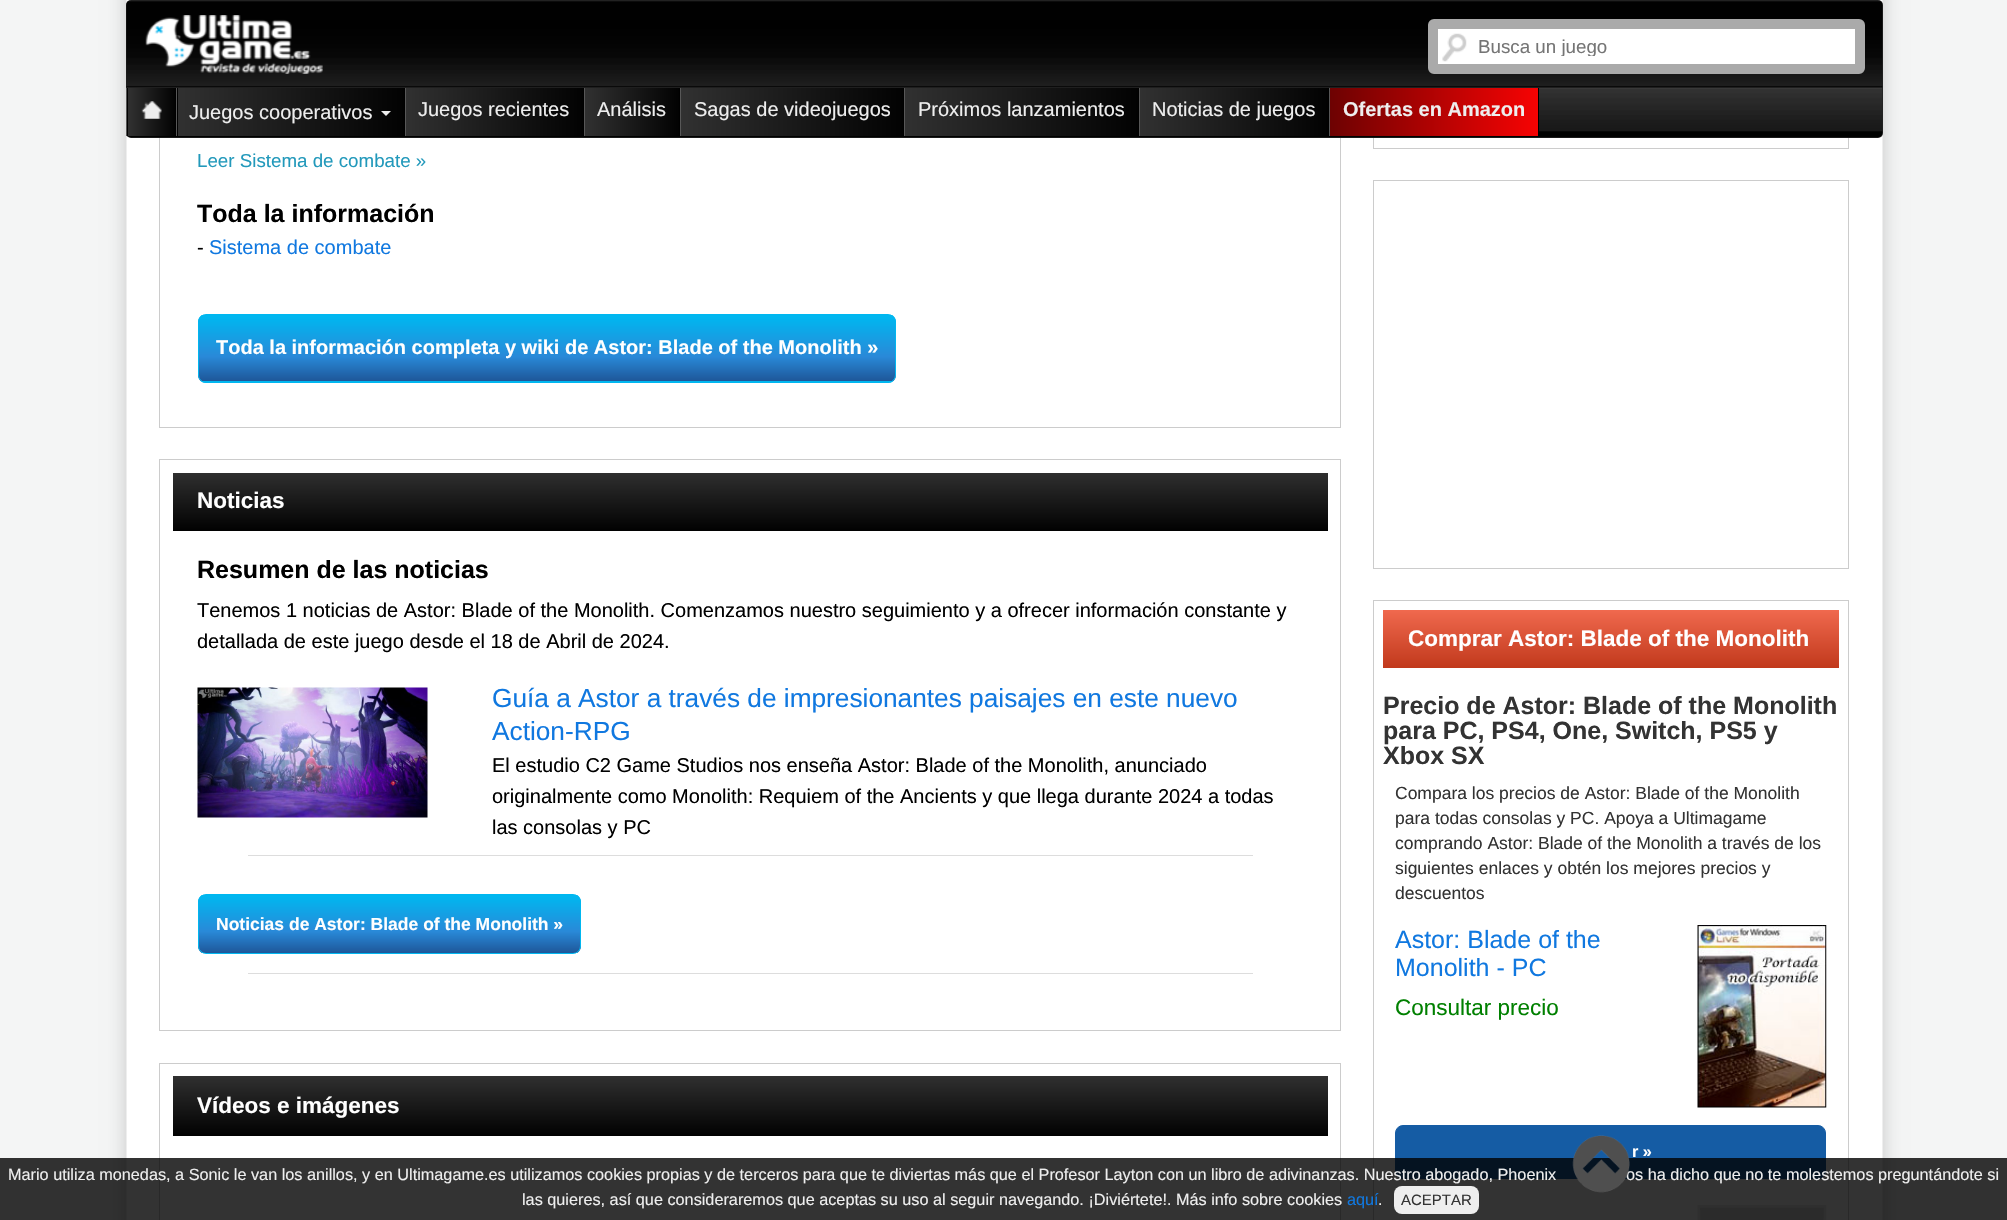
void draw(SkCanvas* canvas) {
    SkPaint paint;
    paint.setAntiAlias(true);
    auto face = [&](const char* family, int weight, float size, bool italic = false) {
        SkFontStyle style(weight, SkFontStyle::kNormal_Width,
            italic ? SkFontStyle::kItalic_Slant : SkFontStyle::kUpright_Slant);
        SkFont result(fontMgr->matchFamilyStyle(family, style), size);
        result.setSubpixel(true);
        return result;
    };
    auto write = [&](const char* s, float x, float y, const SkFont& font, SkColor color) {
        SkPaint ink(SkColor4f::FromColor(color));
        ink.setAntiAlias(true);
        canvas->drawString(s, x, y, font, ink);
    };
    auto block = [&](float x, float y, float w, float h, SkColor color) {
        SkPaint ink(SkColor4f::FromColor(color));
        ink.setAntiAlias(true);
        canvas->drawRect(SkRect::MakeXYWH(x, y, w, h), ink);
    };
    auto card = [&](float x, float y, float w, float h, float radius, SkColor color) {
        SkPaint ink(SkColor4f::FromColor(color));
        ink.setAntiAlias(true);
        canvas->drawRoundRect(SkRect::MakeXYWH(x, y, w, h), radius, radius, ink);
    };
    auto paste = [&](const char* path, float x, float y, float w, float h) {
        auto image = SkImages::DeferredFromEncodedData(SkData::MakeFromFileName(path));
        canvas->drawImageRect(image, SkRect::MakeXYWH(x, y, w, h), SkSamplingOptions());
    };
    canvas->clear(SkColorSetRGB(244, 245, 245));
    paint.setColor(SK_ColorBLACK);
    paint.setMaskFilter(SkMaskFilter::MakeBlur(kNormal_SkBlurStyle, 17));
    canvas->drawRect(SkRect::MakeXYWH(149, -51, 1711, 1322), paint);
    paint.setMaskFilter(nullptr);
    paint.setColor(SK_ColorWHITE);
    canvas->drawRect(SkRect::MakeXYWH(126.5f, -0.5f, 1756, 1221), paint);
    paint.setStyle(SkPaint::kStroke_Style);
    paint.setStrokeWidth(1);
    paint.setColor(SkColorSetRGB(238, 238, 238));
    canvas->drawRect(SkRect::MakeXYWH(126.5f, -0.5f, 1756, 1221), paint);
    paint.setColor(SkColorSetRGB(204, 204, 204));
    canvas->drawRect(SkRect::MakeXYWH(159.5f, -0.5f, 1181, 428), paint);
    canvas->drawRect(SkRect::MakeXYWH(1373.5f, 0.5f, 475, 148), paint);
    card(126, 0, 1757, 138, 5, SkColorSetRGB(34, 34, 34));
    paste("pic1.png", 126, 1, 1757, 137);
    paste("pic2.png", 145, 15, 178, 59);
    block(1438, 29, 417, 35, SK_ColorWHITE);
    paste("pic3.png", 1442, 33, 25, 29);
    paint.setStrokeWidth(10);
    paint.setColor(SkColorSetRGB(170, 170, 170));
    canvas->drawRoundRect(SkRect::MakeXYWH(1433, 24, 427, 45), 1, 1, paint);
    canvas->save();
    canvas->clipRect(SkRect::MakeXYWH(1479, 35, 365, 21));
    auto kFont1 = face("Liberation Sans", 400, 18.75f);
    write("Busca un juego", 1478, 53, kFont1, SkColorSetRGB(117, 117, 117));
    canvas->restore();
    paint.setStyle(SkPaint::kFill_Style);
    {
        const SkColor colors[] = {SkColorSetRGB(49, 49, 49), SkColorSetRGB(2, 2, 2)};
        const float stops[] = {0, 1};
        const SkPoint ends[] = {{80, 112}, {128, 112}};
        paint.setShader(SkGradientShader::MakeLinear(ends, colors, stops, 2, SkTileMode::kClamp));
        paint.setAlpha(255);
    }
    canvas->drawRect(SkRect::MakeXYWH(127, 88, 1, 48), paint);
    {
        const SkColor colors[] = {SkColorSetRGB(49, 49, 49), SkColorSetRGB(2, 2, 2)};
        const float stops[] = {0, 1};
        const SkPoint ends[] = {{128, 112}, {175, 112}};
        paint.setShader(SkGradientShader::MakeLinear(ends, colors, stops, 2, SkTileMode::kClamp));
        paint.setAlpha(255);
    }
    canvas->drawRect(SkRect::MakeXYWH(128, 88, 47, 48), paint);
    block(175, 88, 1, 48, SK_ColorBLACK);
    block(126, 88, 1, 48, SkColorSetRGB(87, 87, 87));
    paste("pic4.png", 141, 101, 21, 18);
    {
        const SkColor colors[] = {SkColorSetRGB(49, 49, 49), SkColorSetRGB(2, 2, 2)};
        const float stops[] = {0, 1};
        const SkPoint ends[] = {{-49, 112}, {178, 112}};
        paint.setShader(SkGradientShader::MakeLinear(ends, colors, stops, 2, SkTileMode::kClamp));
        paint.setAlpha(255);
    }
    canvas->drawRect(SkRect::MakeXYWH(177, 88, 1, 48), paint);
    {
        const SkColor colors[] = {SkColorSetRGB(49, 49, 49), SkColorSetRGB(2, 2, 2)};
        const float stops[] = {0, 1};
        const SkPoint ends[] = {{178, 112}, {404, 112}};
        paint.setShader(SkGradientShader::MakeLinear(ends, colors, stops, 2, SkTileMode::kClamp));
        paint.setAlpha(255);
    }
    canvas->drawRect(SkRect::MakeXYWH(178, 88, 226, 48), paint);
    block(404, 88, 1, 48, SK_ColorBLACK);
    block(176, 88, 1, 48, SkColorSetRGB(87, 87, 87));
    auto kFont2 = face("Liberation Sans", 400, 20);
    write("Juegos cooperativos", 189, 119, kFont2, SkColorSetRGB(238, 238, 238));
    paint.setShader(nullptr);
    paint.setColor(SkColorSetRGB(238, 238, 238));
    canvas->drawPath(SkPathBuilder().moveTo(381, 111).lineTo(391, 111).lineTo(386, 116).close().detach(), paint);
    {
        const SkColor colors[] = {SkColorSetRGB(49, 49, 49), SkColorSetRGB(2, 2, 2)};
        const float stops[] = {0, 1};
        const SkPoint ends[] = {{406, 112}, {583, 112}};
        paint.setShader(SkGradientShader::MakeLinear(ends, colors, stops, 2, SkTileMode::kClamp));
        paint.setAlpha(255);
    }
    canvas->drawRect(SkRect::MakeXYWH(406, 88, 177, 48), paint);
    block(583, 88, 1, 48, SK_ColorBLACK);
    block(405, 88, 1, 48, SkColorSetRGB(87, 87, 87));
    write("Juegos recientes", 418, 116, kFont2, SkColorSetRGB(238, 238, 238));
    {
        const SkColor colors[] = {SkColorSetRGB(49, 49, 49), SkColorSetRGB(2, 2, 2)};
        const float stops[] = {0, 1};
        const SkPoint ends[] = {{585, 112}, {679, 112}};
        paint.setShader(SkGradientShader::MakeLinear(ends, colors, stops, 2, SkTileMode::kClamp));
        paint.setAlpha(255);
    }
    canvas->drawRect(SkRect::MakeXYWH(585, 88, 94, 48), paint);
    block(679, 88, 1, 48, SK_ColorBLACK);
    block(584, 88, 1, 48, SkColorSetRGB(87, 87, 87));
    write("Análisis", 597, 116, kFont2, SkColorSetRGB(238, 238, 238));
    {
        const SkColor colors[] = {SkColorSetRGB(49, 49, 49), SkColorSetRGB(2, 2, 2)};
        const float stops[] = {0, 1};
        const SkPoint ends[] = {{681, 112}, {903, 112}};
        paint.setShader(SkGradientShader::MakeLinear(ends, colors, stops, 2, SkTileMode::kClamp));
        paint.setAlpha(255);
    }
    canvas->drawRect(SkRect::MakeXYWH(681, 88, 222, 48), paint);
    block(903, 88, 1, 48, SK_ColorBLACK);
    block(680, 88, 1, 48, SkColorSetRGB(87, 87, 87));
    write("Sagas de videojuegos", 694, 116, kFont2, SkColorSetRGB(238, 238, 238));
    {
        const SkColor colors[] = {SkColorSetRGB(49, 49, 49), SkColorSetRGB(2, 2, 2)};
        const float stops[] = {0, 1};
        const SkPoint ends[] = {{905, 112}, {1138, 112}};
        paint.setShader(SkGradientShader::MakeLinear(ends, colors, stops, 2, SkTileMode::kClamp));
        paint.setAlpha(255);
    }
    canvas->drawRect(SkRect::MakeXYWH(905, 88, 233, 48), paint);
    block(1138, 88, 1, 48, SK_ColorBLACK);
    block(904, 88, 1, 48, SkColorSetRGB(87, 87, 87));
    write("Próximos lanzamientos", 918, 116, kFont2, SkColorSetRGB(238, 238, 238));
    {
        const SkColor colors[] = {SkColorSetRGB(49, 49, 49), SkColorSetRGB(2, 2, 2)};
        const float stops[] = {0, 1};
        const SkPoint ends[] = {{1140, 112}, {1328, 112}};
        paint.setShader(SkGradientShader::MakeLinear(ends, colors, stops, 2, SkTileMode::kClamp));
        paint.setAlpha(255);
    }
    canvas->drawRect(SkRect::MakeXYWH(1140, 88, 188, 48), paint);
    block(1328, 88, 1, 48, SK_ColorBLACK);
    block(1139, 88, 1, 48, SkColorSetRGB(87, 87, 87));
    write("Noticias de juegos", 1152, 116, kFont2, SkColorSetRGB(238, 238, 238));
    block(1538, 88, 1, 48, SK_ColorBLACK);
    block(1329, 88, 1, 48, SkColorSetRGB(87, 87, 87));
    {
        const SkColor colors[] = {SkColorSetRGB(109, 2, 2), SkColorSetRGB(247, 3, 3)};
        const float stops[] = {0, 1};
        const SkPoint ends[] = {{1330, 112}, {1538, 112}};
        paint.setShader(SkGradientShader::MakeLinear(ends, colors, stops, 2, SkTileMode::kClamp));
        paint.setAlpha(255);
    }
    canvas->drawRect(SkRect::MakeXYWH(1330, 88, 208, 48), paint);
    auto kFont3 = face("Liberation Sans", 700, 20);
    write("Ofertas en Amazon", 1343, 116, kFont3, SkColorSetRGB(238, 238, 238));
    write("Leer Sistema de combate »", 197, 167, kFont1, SkColorSetRGB(34, 153, 187));
    auto kFont4 = face("Liberation Sans", 700, 25);
    write("Toda la información", 197, 222, kFont4, SK_ColorBLACK);
    write("-", 197, 254, kFont2, SK_ColorBLACK);
    write("Sistema de combate", 209, 254, kFont2, SkColorSetRGB(16, 120, 224));
    canvas->save();
    canvas->clipPath(SkPathBuilder().moveTo(206, 314).lineTo(888, 314).cubicTo(892.5f, 314, 896, 317.5f, 896, 322).lineTo(896, 375).cubicTo(896, 379.5f, 892.5f, 383, 888, 383).lineTo(206, 383).cubicTo(201.5f, 383, 198, 379.5f, 198, 375).lineTo(198, 322).cubicTo(198, 317.5f, 201.5f, 314, 206, 314).close().detach(), true);
    {
        const SkColor colors[] = {SkColorSetRGB(0, 183, 240), SkColorSetRGB(41, 137, 216), SkColorSetRGB(30, 87, 153)};
        const float stops[] = {0.02f, 0.63f, 1};
        const SkPoint ends[] = {{547, 315}, {547, 381}};
        paint.setShader(SkGradientShader::MakeLinear(ends, colors, stops, 3, SkTileMode::kClamp));
        paint.setAlpha(255);
    }
    canvas->drawRect(SkRect::MakeXYWH(198, 315, 698, 66), paint);
    {
        const SkColor colors[] = {SkColorSetRGB(0, 183, 240), SkColorSetRGB(41, 137, 216), SkColorSetRGB(30, 87, 153)};
        const float stops[] = {0.02f, 0.63f, 1};
        const SkPoint ends[] = {{547, 381}, {547, 448}};
        paint.setShader(SkGradientShader::MakeLinear(ends, colors, stops, 3, SkTileMode::kClamp));
        paint.setAlpha(255);
    }
    canvas->drawRect(SkRect::MakeXYWH(198, 381, 698, 2), paint);
    canvas->restore();
    paint.setStyle(SkPaint::kStroke_Style);
    paint.setStrokeWidth(1);
    paint.setShader(nullptr);
    paint.setColor(SkColorSetRGB(0, 183, 240));
    canvas->drawRoundRect(SkRect::MakeXYWH(198.5f, 314.5f, 697, 68), 7.5f, 7.5f, paint);
    write("Toda la información completa y wiki de Astor: Blade of the Monolith »", 216, 354, kFont3, SK_ColorWHITE);
    paint.setColor(SkColorSetRGB(204, 204, 204));
    canvas->drawRect(SkRect::MakeXYWH(159.5f, 459.5f, 1181, 571), paint);
    paint.setStyle(SkPaint::kFill_Style);
    {
        const SkColor colors[] = {SkColorSetRGB(48, 48, 48), SkColorSetRGB(1, 1, 1)};
        const float stops[] = {0, 1};
        const SkPoint ends[] = {{750, 472}, {750, 531}};
        paint.setShader(SkGradientShader::MakeLinear(ends, colors, stops, 2, SkTileMode::kClamp));
        paint.setAlpha(255);
    }
    canvas->drawRect(SkRect::MakeXYWH(173, 473, 1155, 58), paint);
    auto kFont5 = face("Liberation Sans", 700, 22.5f);
    write("Noticias", 197, 508, kFont5, SK_ColorWHITE);
    write("Resumen de las noticias", 197, 578, kFont4, SK_ColorBLACK);
    write("Tenemos 1 noticias de Astor: Blade of the Monolith. Comenzamos nuestro seguimiento y a ofrecer información constante y", 197, 617, kFont2, SK_ColorBLACK);
    write("detallada de este juego desde el 18 de Abril de 2024.", 197, 648, kFont2, SK_ColorBLACK);
    paste("pic5.png", 197, 687, 231, 131);
    auto kFont6 = face("Liberation Sans", 400, 26.25f);
    write("Guía a Astor a través de impresionantes paisajes en este nuevo", 492, 707, kFont6, SkColorSetRGB(16, 120, 224));
    write("Action-RPG", 492, 740, kFont6, SkColorSetRGB(16, 120, 224));
    write("El estudio C2 Game Studios nos enseña Astor: Blade of the Monolith, anunciado", 492, 772, kFont2, SK_ColorBLACK);
    write("originalmente como Monolith: Requiem of the Ancients y que llega durante 2024 a todas", 492, 803, kFont2, SK_ColorBLACK);
    write("las consolas y PC", 492, 834, kFont2, SK_ColorBLACK);
    block(248, 855, 1005, 1, SkColorSetRGB(221, 221, 221));
    canvas->save();
    canvas->clipPath(SkPathBuilder().moveTo(206, 894).lineTo(573, 894).cubicTo(577.5f, 894, 581, 897.5f, 581, 902).lineTo(581, 946).cubicTo(581, 950.5f, 577.5f, 954, 573, 954).lineTo(206, 954).cubicTo(201.5f, 954, 198, 950.5f, 198, 946).lineTo(198, 902).cubicTo(198, 897.5f, 201.5f, 894, 206, 894).close().detach(), true);
    {
        const SkColor colors[] = {SkColorSetRGB(0, 183, 240), SkColorSetRGB(41, 137, 216), SkColorSetRGB(30, 87, 153)};
        const float stops[] = {0.02f, 0.63f, 1};
        const SkPoint ends[] = {{389, 895}, {389, 953}};
        paint.setShader(SkGradientShader::MakeLinear(ends, colors, stops, 3, SkTileMode::kClamp));
        paint.setAlpha(255);
    }
    canvas->drawRect(SkRect::MakeXYWH(198, 895, 383, 58), paint);
    canvas->restore();
    paint.setStyle(SkPaint::kStroke_Style);
    paint.setShader(nullptr);
    paint.setColor(SkColorSetRGB(0, 183, 240));
    canvas->drawRoundRect(SkRect::MakeXYWH(198.5f, 894.5f, 382, 59), 7.5f, 7.5f, paint);
    auto kFont7 = face("Liberation Sans", 700, 17.5f);
    write("Noticias de Astor: Blade of the Monolith »", 216, 930, kFont7, SK_ColorWHITE);
    block(248, 973, 1005, 1, SkColorSetRGB(221, 221, 221));
    paint.setColor(SkColorSetRGB(204, 204, 204));
    canvas->drawRect(SkRect::MakeXYWH(159.5f, 1063.5f, 1181, 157), paint);
    paint.setStyle(SkPaint::kFill_Style);
    {
        const SkColor colors[] = {SkColorSetRGB(48, 48, 48), SkColorSetRGB(1, 1, 1)};
        const float stops[] = {0, 1};
        const SkPoint ends[] = {{750, 1076}, {750, 1136}};
        paint.setShader(SkGradientShader::MakeLinear(ends, colors, stops, 2, SkTileMode::kClamp));
        paint.setAlpha(255);
    }
    canvas->drawRect(SkRect::MakeXYWH(173, 1076, 1155, 60), paint);
    write("Vídeos e imágenes", 197, 1113, kFont5, SK_ColorWHITE);
    paint.setStyle(SkPaint::kStroke_Style);
    paint.setShader(nullptr);
    paint.setColor(SkColorSetRGB(204, 204, 204));
    canvas->drawRect(SkRect::MakeXYWH(1373.5f, 180.5f, 475, 388), paint);
    canvas->drawRect(SkRect::MakeXYWH(1373.5f, 600.5f, 475, 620), paint);
    paint.setStyle(SkPaint::kFill_Style);
    {
        const SkColor colors[] = {SkColorSetRGB(240, 105, 78), SkColorSetRGB(193, 57, 28)};
        const float stops[] = {0, 1};
        const SkPoint ends[] = {{1611, 610}, {1611, 668}};
        paint.setShader(SkGradientShader::MakeLinear(ends, colors, stops, 2, SkTileMode::kClamp));
        paint.setAlpha(255);
    }
    canvas->drawRect(SkRect::MakeXYWH(1383, 610, 456, 58), paint);
    write("Comprar Astor: Blade of the Monolith", 1408, 646, kFont5, SK_ColorWHITE);
    write("Precio de Astor: Blade of the Monolith", 1383, 714, kFont4, SkColorSetRGB(51, 51, 51));
    write("para PC, PS4, One, Switch, PS5 y", 1383, 739, kFont4, SkColorSetRGB(51, 51, 51));
    write("Xbox SX", 1383, 764, kFont4, SkColorSetRGB(51, 51, 51));
    auto kFont8 = face("Liberation Sans", 400, 17.5f);
    write("Compara los precios de Astor: Blade of the Monolith", 1395, 799, kFont8, SkColorSetRGB(51, 51, 51));
    write("para todas consolas y PC. Apoya a Ultimagame", 1395, 824, kFont8, SkColorSetRGB(51, 51, 51));
    write("comprando Astor: Blade of the Monolith a través de los", 1395, 849, kFont8, SkColorSetRGB(51, 51, 51));
    write("siguientes enlaces y obtén los mejores precios y", 1395, 874, kFont8, SkColorSetRGB(51, 51, 51));
    write("descuentos", 1395, 899, kFont8, SkColorSetRGB(51, 51, 51));
    auto kFont9 = face("Liberation Sans", 400, 25);
    write("Astor: Blade of the", 1395, 948, kFont9, SkColorSetRGB(16, 120, 224));
    paste("pic6.png", 1697, 925, 130, 183);
    write("Monolith - PC", 1395, 976, kFont9, SkColorSetRGB(16, 120, 224));
    auto kFont10 = face("Liberation Sans", 400, 22.5f);
    write("Consultar precio", 1395, 1015, kFont10, SkColorSetRGB(0, 128, 0));
    paint.setShader(nullptr);
    paint.setColor(SkColorSetRGB(21, 92, 164));
    canvas->drawRoundRect(SkRect::MakeXYWH(1395.5f, 1125.5f, 430, 53), 7.5f, 7.5f, paint);
    paint.setStyle(SkPaint::kStroke_Style);
    canvas->drawRoundRect(SkRect::MakeXYWH(1395.5f, 1125.5f, 430, 53), 7.5f, 7.5f, paint);
    auto kFont11 = face("Liberation Sans", 700, 16.25f);
    write("r »", 1632, 1157, kFont11, SK_ColorWHITE);
    paste("pic7.png", 1697, 1205, 130, 15);
    block(0, 1158, 2007, 62, SkColorSetARGB(204, 0, 0, 0));
    auto kFont12 = face("Liberation Sans", 400, 16.25f);
    write("os ha dicho que no te molestemos preguntándote si", 1626, 1180, kFont12, SkColorSetRGB(238, 238, 238));
    paste("pic8.png", 1572, 1135, 58, 58);
    write("Mario utiliza monedas, a Sonic le van los anillos, y en Ultimagame.es utilizamos cookies propias y de terceros para que te diviertas más que el Profesor Layton con un libro de adivinanzas. Nuestro abogado, Phoenix", 8, 1180, kFont12, SkColorSetRGB(238, 238, 238));
    write("las quieres, así que consideraremos que aceptas su uso al seguir navegando. ¡Diviértete!. Más info sobre cookies", 522, 1205, kFont12, SkColorSetRGB(238, 238, 238));
    write("aquí", 1347, 1205, kFont12, SkColorSetRGB(16, 120, 224));
    write(".", 1378, 1205, kFont12, SkColorSetRGB(238, 238, 238));
    card(1394, 1186, 85, 28, 8, SkColorSetRGB(238, 238, 238));
    auto kFont13 = face("Liberation Sans", 400, 15);
    write("ACEPTAR", 1401, 1205, kFont13, SkColorSetRGB(51, 51, 51));
}
